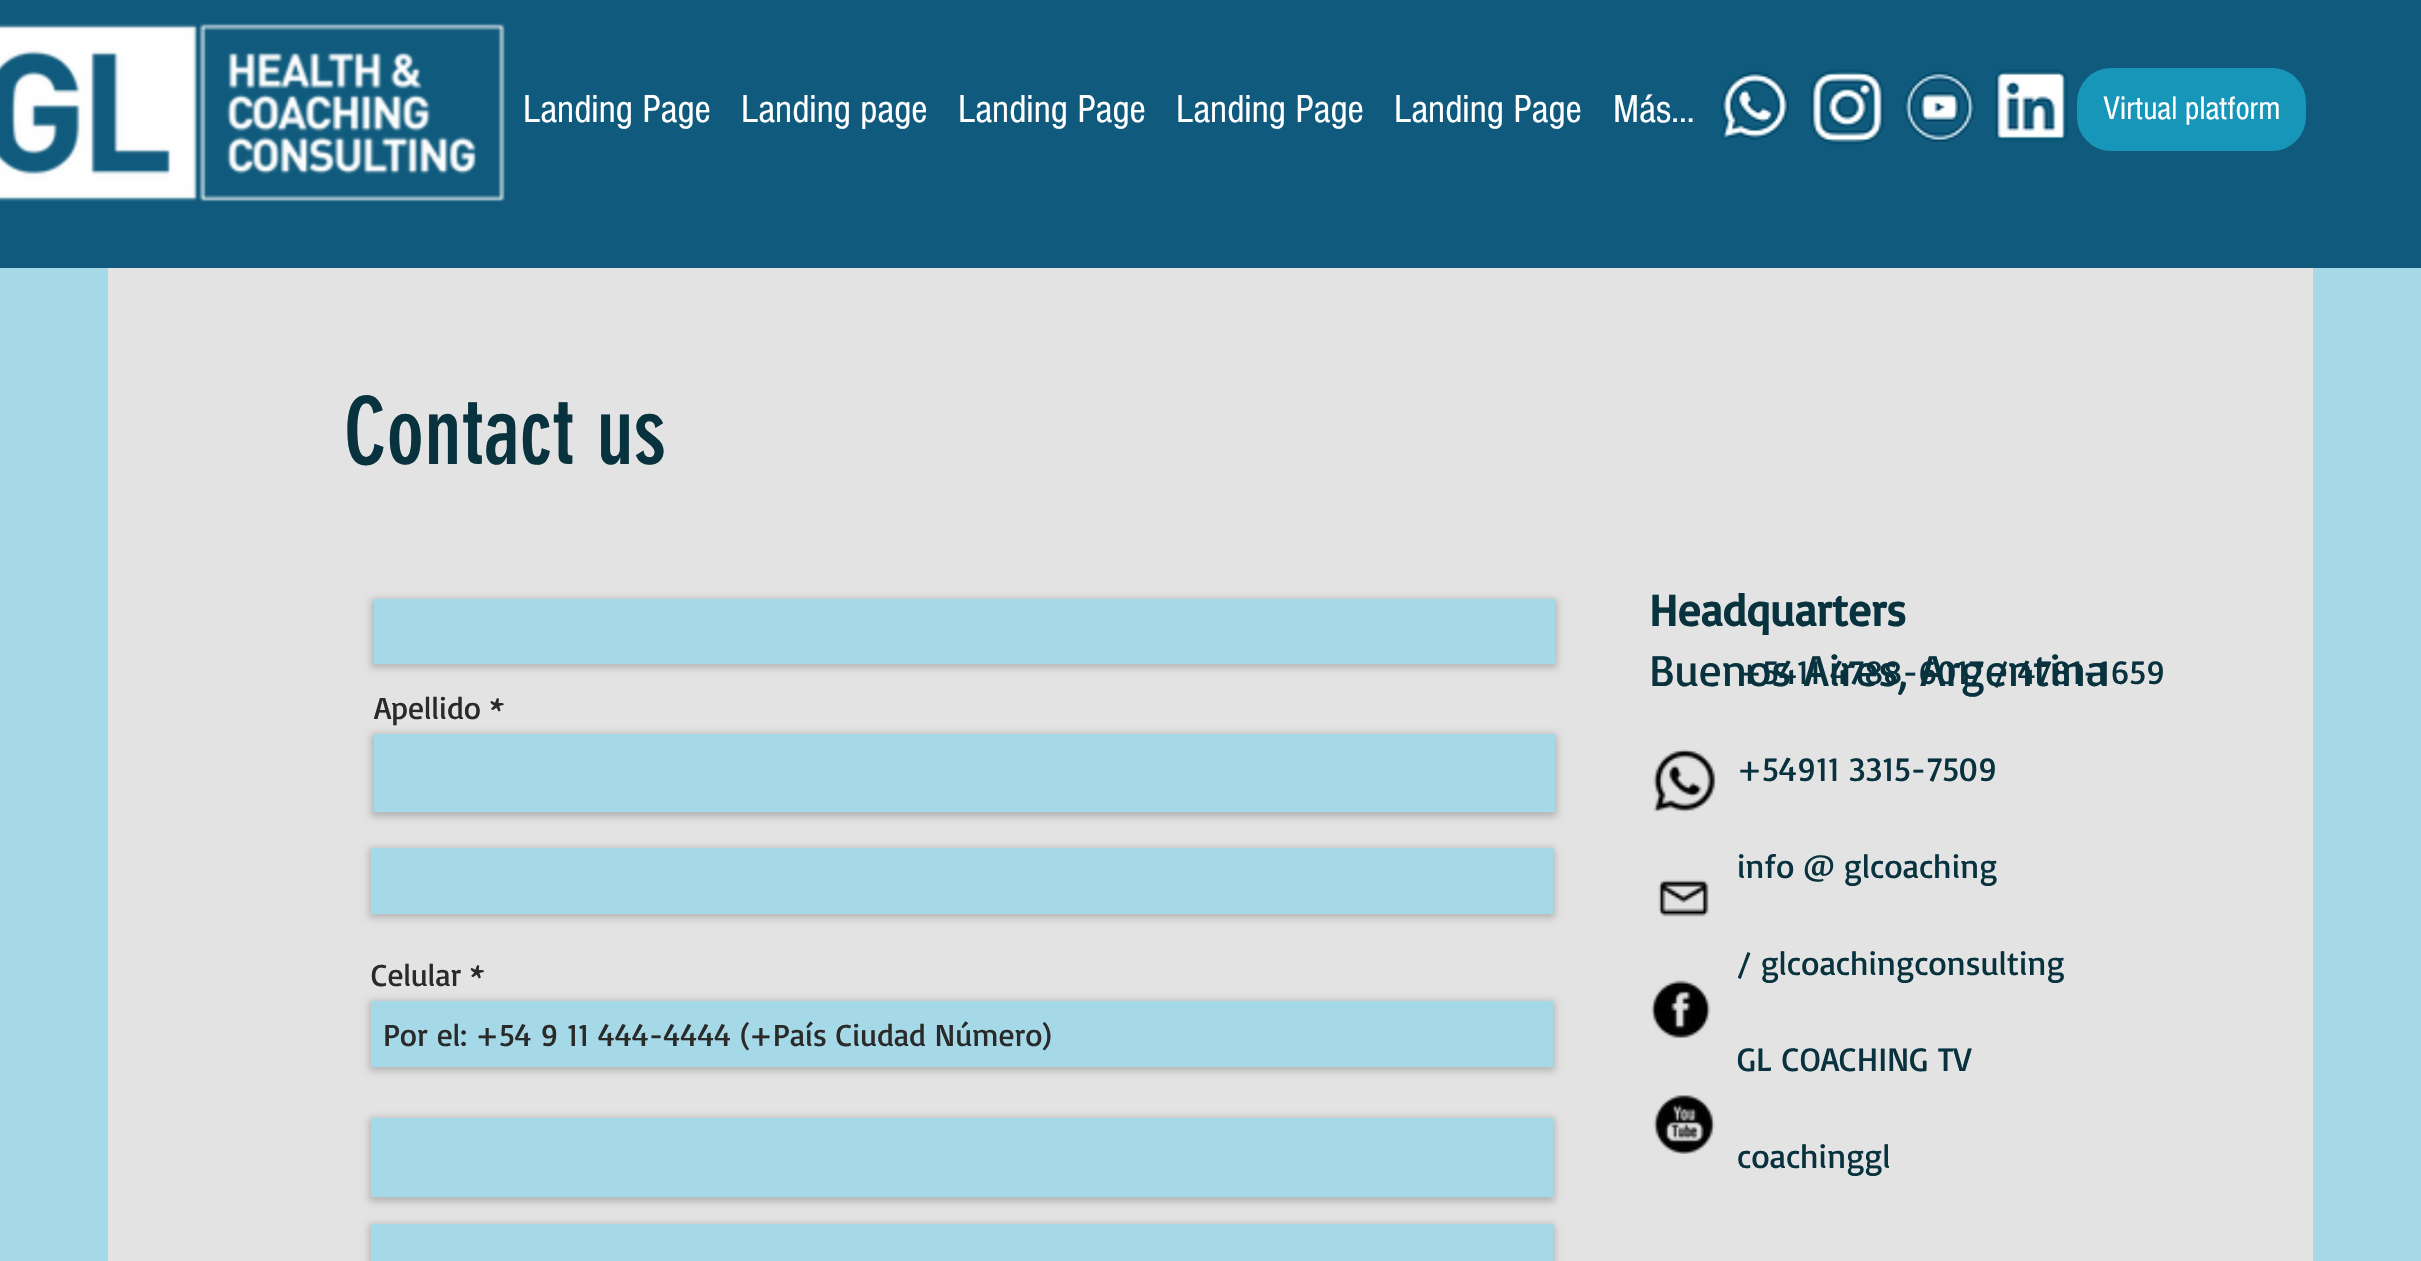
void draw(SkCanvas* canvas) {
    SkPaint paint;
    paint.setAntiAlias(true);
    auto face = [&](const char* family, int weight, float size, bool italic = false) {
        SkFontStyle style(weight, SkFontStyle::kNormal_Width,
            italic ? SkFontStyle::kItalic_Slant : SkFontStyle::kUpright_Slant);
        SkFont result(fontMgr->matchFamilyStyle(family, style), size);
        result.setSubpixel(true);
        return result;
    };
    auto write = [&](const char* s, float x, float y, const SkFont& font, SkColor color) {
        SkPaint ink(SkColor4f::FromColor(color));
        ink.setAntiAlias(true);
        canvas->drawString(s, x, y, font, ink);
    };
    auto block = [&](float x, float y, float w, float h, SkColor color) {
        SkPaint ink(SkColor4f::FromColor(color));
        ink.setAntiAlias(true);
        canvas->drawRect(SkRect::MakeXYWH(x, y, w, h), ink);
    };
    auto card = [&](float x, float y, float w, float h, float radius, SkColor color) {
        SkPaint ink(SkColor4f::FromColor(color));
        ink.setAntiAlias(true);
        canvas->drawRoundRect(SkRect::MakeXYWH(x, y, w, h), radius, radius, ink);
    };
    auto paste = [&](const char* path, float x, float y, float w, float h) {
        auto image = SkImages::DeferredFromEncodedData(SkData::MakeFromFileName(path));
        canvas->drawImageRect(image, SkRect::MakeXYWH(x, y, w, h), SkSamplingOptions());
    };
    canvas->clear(SkColorSetRGB(165, 217, 232));
    block(0, 0, 2421, 268, SkColorSetRGB(16, 91, 125));
    paste("pic1.png", 0, 23, 505, 179);
    auto kFont1 = face("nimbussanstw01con", 400, 40.5f);
    write("Landing Page", 523, 122, kFont1, SK_ColorWHITE);
    write("Landing page", 741, 122, kFont1, SK_ColorWHITE);
    write("Landing Page", 958, 122, kFont1, SK_ColorWHITE);
    write("Landing Page", 1176, 122, kFont1, SK_ColorWHITE);
    write("Landing Page", 1394, 122, kFont1, SK_ColorWHITE);
    write("Más...", 1613, 122, kFont1, SK_ColorWHITE);
    paste("pic2.png", 1721, 71, 68, 69);
    paste("pic3.png", 1810, 69, 74, 76);
    paste("pic4.png", 1903, 71, 73, 73);
    paste("pic5.png", 1995, 69, 73, 73);
    card(2077, 68, 229, 83, 34, SkColorSetRGB(24, 150, 186));
    auto kFont2 = face("nimbussanstw01con", 400, 33.75f);
    write("Virtual platform", 2103, 119, kFont2, SK_ColorWHITE);
    block(108, 268, 2205, 993, SkColorSetRGB(227, 227, 227));
    auto kFont3 = face("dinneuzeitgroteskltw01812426", 400, 92);
    write("Contact us", 344, 464, kFont3, SkColorSetRGB(8, 50, 62));
    auto kFont4 = face("Basic", 700, 45);
    write("Headquarters", 1649, 626, kFont4, SkColorSetRGB(8, 50, 62));
    auto kFont5 = face("Basic", 400, 45);
    write("Buenos Aires, Argentina", 1649, 686, kFont5, SkColorSetRGB(8, 50, 62));
    paint.setColor(SkColorSetARGB(51, 0, 0, 0));
    paint.setMaskFilter(SkMaskFilter::MakeBlur(kNormal_SkBlurStyle, 3.5f));
    canvas->drawRect(SkRect::MakeXYWH(371, 599, 1186, 69), paint);
    paint.setMaskFilter(nullptr);
    block(374, 599, 1181, 65, SkColorSetRGB(165, 217, 232));
    auto kFont6 = face("Basic", 400, 31.5f);
    write("Apellido *", 374, 719, kFont6, SkColorSetRGB(42, 42, 42));
    paint.setMaskFilter(SkMaskFilter::MakeBlur(kNormal_SkBlurStyle, 3.5f));
    canvas->drawRect(SkRect::MakeXYWH(371, 734, 1186, 83), paint);
    paint.setMaskFilter(nullptr);
    block(374, 734, 1181, 78, SkColorSetRGB(165, 217, 232));
    paint.setMaskFilter(SkMaskFilter::MakeBlur(kNormal_SkBlurStyle, 3.5f));
    canvas->drawRect(SkRect::MakeXYWH(369, 848, 1186, 70), paint);
    paint.setMaskFilter(nullptr);
    block(371, 848, 1182, 66, SkColorSetRGB(165, 217, 232));
    write("Celular *", 371, 986, kFont6, SkColorSetRGB(42, 42, 42));
    paint.setMaskFilter(SkMaskFilter::MakeBlur(kNormal_SkBlurStyle, 3.5f));
    canvas->drawRect(SkRect::MakeXYWH(369, 1001, 1186, 70), paint);
    paint.setMaskFilter(nullptr);
    block(371, 1001, 1182, 66, SkColorSetRGB(165, 217, 232));
    write("Por el: +54 9 11 444-4444 (+País Ciudad Número)", 383, 1046, kFont6, SkColorSetRGB(42, 42, 42));
    paint.setMaskFilter(SkMaskFilter::MakeBlur(kNormal_SkBlurStyle, 3.5f));
    canvas->drawRect(SkRect::MakeXYWH(369, 1118, 1186, 84), paint);
    paint.setMaskFilter(nullptr);
    block(371, 1118, 1182, 79, SkColorSetRGB(165, 217, 232));
    paint.setMaskFilter(SkMaskFilter::MakeBlur(kNormal_SkBlurStyle, 3.5f));
    canvas->drawRect(SkRect::MakeXYWH(369, 1224, 1186, 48), paint);
    paint.setMaskFilter(nullptr);
    block(371, 1224, 1182, 37, SkColorSetRGB(165, 217, 232));
    paste("pic6.png", 1653, 749, 63, 64);
    auto kFont7 = face("Basic", 400, 33.75f);
    write("+5411 4788-6017 / 4781-1659", 1737, 684, kFont7, SkColorSetRGB(8, 50, 62));
    write("+54911 3315-7509", 1737, 781, kFont7, SkColorSetRGB(8, 50, 62));
    write("info @ glcoaching", 1737, 878, kFont7, SkColorSetRGB(8, 50, 62));
    write("/ glcoachingconsulting", 1737, 975, kFont7, SkColorSetRGB(8, 50, 62));
    write("GL COACHING TV", 1737, 1071, kFont7, SkColorSetRGB(8, 50, 62));
    write("coachinggl", 1737, 1168, kFont7, SkColorSetRGB(8, 50, 62));
    paste("pic7.png", 1658, 879, 51, 38);
    paste("pic8.png", 1651, 980, 60, 58);
    paste("pic9.png", 1653, 1095, 62, 59);
}
